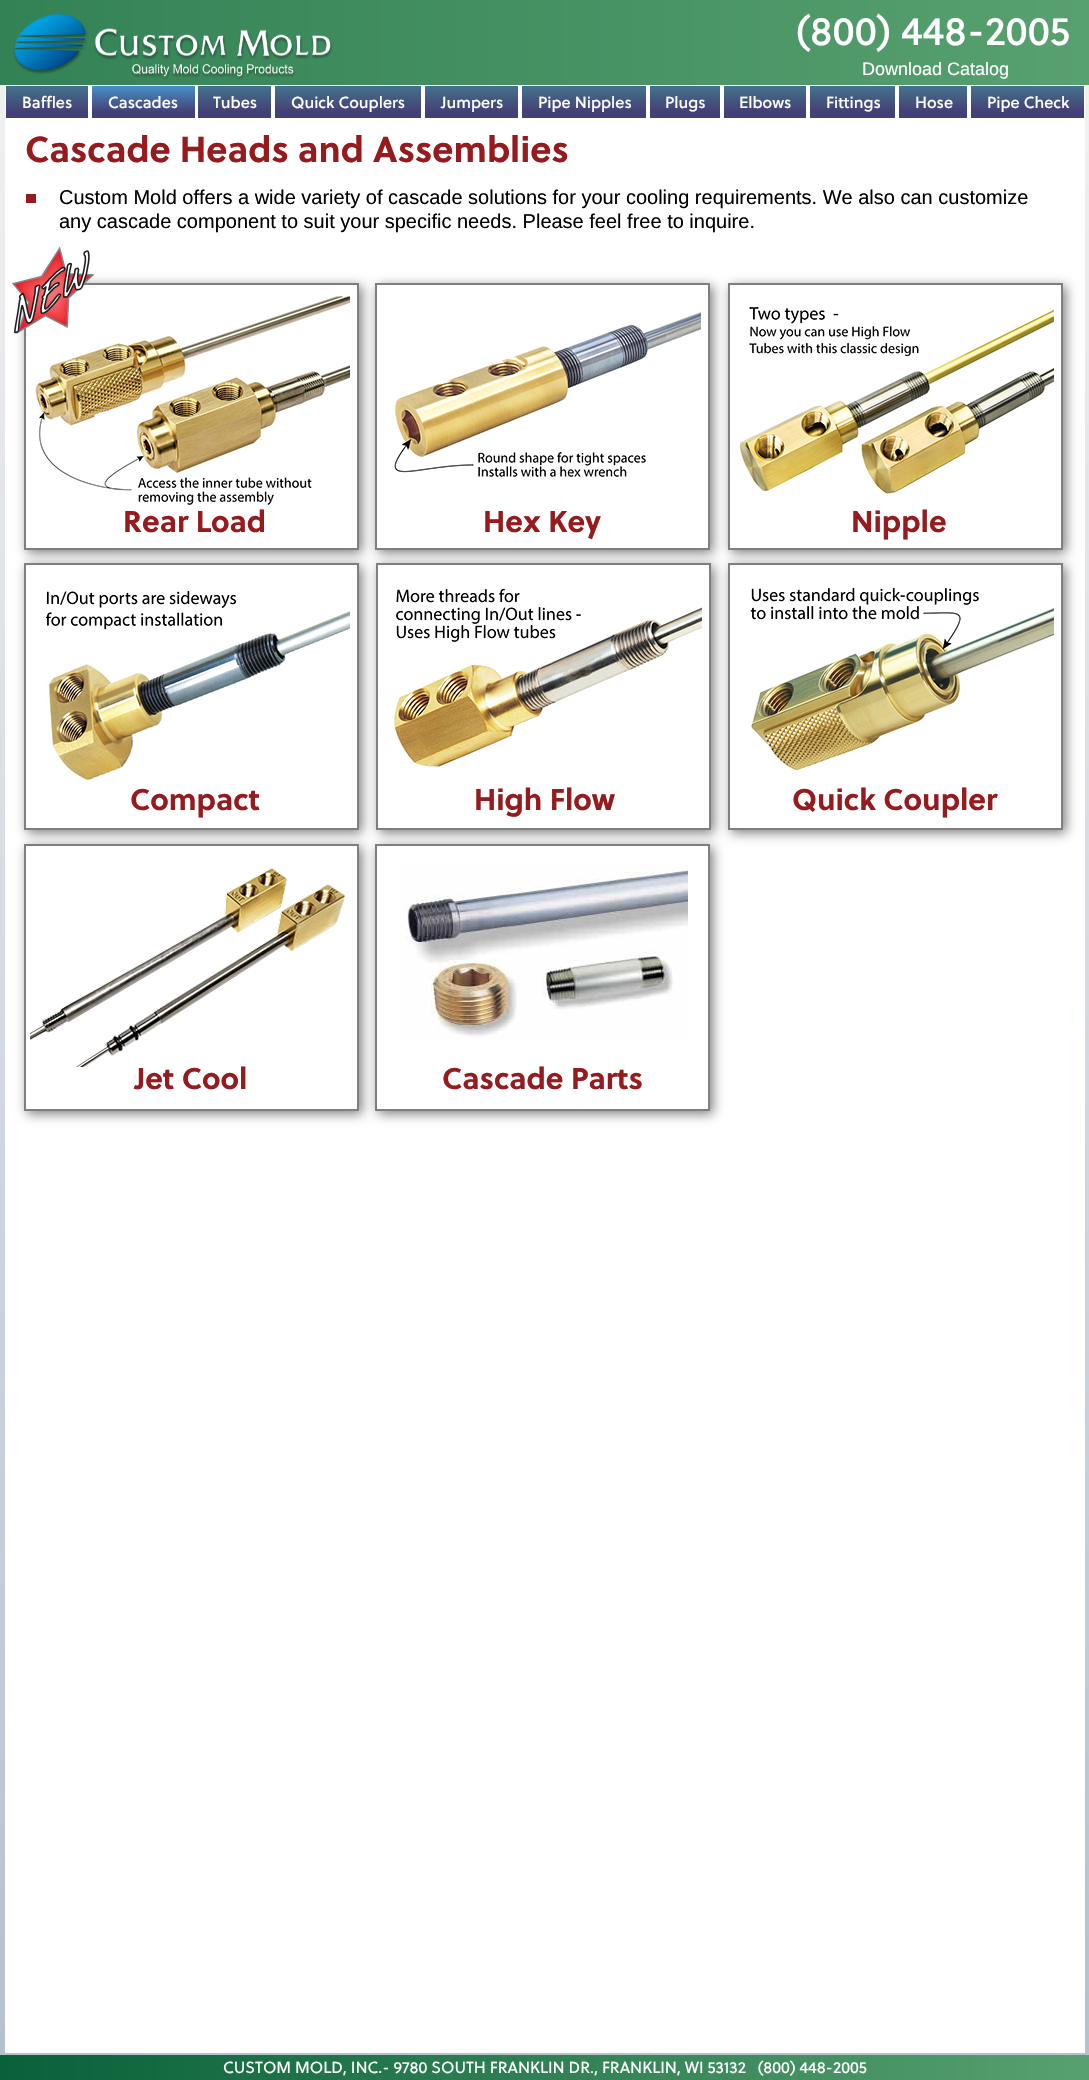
void draw(SkCanvas* canvas) {
    SkPaint paint;
    paint.setAntiAlias(true);
    auto face = [&](const char* family, int weight, float size, bool italic = false) {
        SkFontStyle style(weight, SkFontStyle::kNormal_Width,
            italic ? SkFontStyle::kItalic_Slant : SkFontStyle::kUpright_Slant);
        SkFont result(fontMgr->matchFamilyStyle(family, style), size);
        result.setSubpixel(true);
        return result;
    };
    auto write = [&](const char* s, float x, float y, const SkFont& font, SkColor color) {
        SkPaint ink(SkColor4f::FromColor(color));
        ink.setAntiAlias(true);
        canvas->drawString(s, x, y, font, ink);
    };
    auto block = [&](float x, float y, float w, float h, SkColor color) {
        SkPaint ink(SkColor4f::FromColor(color));
        ink.setAntiAlias(true);
        canvas->drawRect(SkRect::MakeXYWH(x, y, w, h), ink);
    };
    auto paste = [&](const char* path, float x, float y, float w, float h) {
        auto image = SkImages::DeferredFromEncodedData(SkData::MakeFromFileName(path));
        canvas->drawImageRect(image, SkRect::MakeXYWH(x, y, w, h), SkSamplingOptions());
    };
    canvas->clear(SK_ColorWHITE);
    {
        const SkColor colors[] = {SkColorSetRGB(242, 242, 242), SkColorSetRGB(181, 192, 206)};
        const float stops[] = {0, 1};
        const SkPoint ends[] = {{544, 0}, {545, 2080}};
        paint.setShader(SkGradientShader::MakeLinear(ends, colors, stops, 2, SkTileMode::kClamp));
        paint.setAlpha(255);
    }
    canvas->drawRect(SkRect::MakeXYWH(0, 85, 1089, 1970), paint);
    block(5, 85, 1080, 1968, SK_ColorWHITE);
    {
        const SkColor colors[] = {SkColorSetRGB(51, 130, 86), SkColorSetRGB(88, 160, 111)};
        const float stops[] = {0, 1};
        const SkPoint ends[] = {{0, 36}, {1089, 35}};
        paint.setShader(SkGradientShader::MakeLinear(ends, colors, stops, 2, SkTileMode::kClamp));
        paint.setAlpha(255);
    }
    canvas->drawRect(SkRect::MakeXYWH(0, 0, 1089, 85), paint);
    auto kFont1 = face("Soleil", 400, 40);
    write("(800) 448-2005", 796, 45, kFont1, SK_ColorWHITE);
    auto kFont2 = face("Soleil", 700, 36);
    write("Cascade Heads and Assemblies", 25, 162, kFont2, SkColorSetRGB(150, 27, 30));
    block(26, 194, 10, 9, SkColorSetRGB(150, 27, 30));
    auto kFont3 = face("Liberation Sans", 400, 20);
    write("Custom Mold offers a wide variety of cascade solutions for your cooling requirements. We also can customize", 59, 204, kFont3, SK_ColorBLACK);
    write("any cascade component to suit your specific needs. Please feel free to inquire.", 59, 228, kFont3, SK_ColorBLACK);
    canvas->save();
    canvas->clipPath(SkPathBuilder(SkPathFillType::kEvenOdd).moveTo(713, 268).lineTo(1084, 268).lineTo(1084, 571).lineTo(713, 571).close().moveTo(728, 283).lineTo(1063, 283).lineTo(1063, 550).lineTo(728, 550).close().detach(), true);
    paint.setShader(nullptr);
    paint.setColor(SkColorSetARGB(128, 0, 0, 0));
    paint.setMaskFilter(SkMaskFilter::MakeBlur(kNormal_SkBlurStyle, 5.5f));
    canvas->drawRect(SkRect::MakeXYWH(731, 286, 335, 267), paint);
    paint.setMaskFilter(nullptr);
    canvas->restore();
    paint.setStyle(SkPaint::kStroke_Style);
    paint.setStrokeWidth(2);
    paint.setColor(SkColorSetRGB(127, 127, 127));
    canvas->drawRect(SkRect::MakeXYWH(729, 284, 333, 265), paint);
    canvas->save();
    canvas->clipPath(SkPathBuilder(SkPathFillType::kEvenOdd).moveTo(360, 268).lineTo(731, 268).lineTo(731, 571).lineTo(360, 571).close().moveTo(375, 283).lineTo(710, 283).lineTo(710, 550).lineTo(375, 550).close().detach(), true);
    paint.setStyle(SkPaint::kFill_Style);
    paint.setColor(SkColorSetARGB(128, 0, 0, 0));
    paint.setMaskFilter(SkMaskFilter::MakeBlur(kNormal_SkBlurStyle, 5.5f));
    canvas->drawRect(SkRect::MakeXYWH(378, 286, 335, 267), paint);
    paint.setMaskFilter(nullptr);
    canvas->restore();
    paint.setStyle(SkPaint::kStroke_Style);
    paint.setColor(SkColorSetRGB(127, 127, 127));
    canvas->drawRect(SkRect::MakeXYWH(376, 284, 333, 265), paint);
    canvas->save();
    canvas->clipPath(SkPathBuilder(SkPathFillType::kEvenOdd).moveTo(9, 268).lineTo(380, 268).lineTo(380, 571).lineTo(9, 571).close().moveTo(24, 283).lineTo(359, 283).lineTo(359, 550).lineTo(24, 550).close().detach(), true);
    paint.setStyle(SkPaint::kFill_Style);
    paint.setColor(SkColorSetARGB(128, 0, 0, 0));
    paint.setMaskFilter(SkMaskFilter::MakeBlur(kNormal_SkBlurStyle, 5.5f));
    canvas->drawRect(SkRect::MakeXYWH(27, 286, 335, 267), paint);
    paint.setMaskFilter(nullptr);
    canvas->restore();
    paint.setStyle(SkPaint::kStroke_Style);
    paint.setColor(SkColorSetRGB(127, 127, 127));
    canvas->drawRect(SkRect::MakeXYWH(25, 284, 333, 265), paint);
    paste("pic2.png", 35, 296, 315, 209);
    paste("pic1.png", 12, 246, 83, 88);
    auto kFont4 = face("Soleil", 700, 30);
    write("Rear Load", 123, 532, kFont4, SkColorSetRGB(150, 27, 30));
    paste("pic3.png", 394, 312, 307, 165);
    write("Hex Key", 483, 532, kFont4, SkColorSetRGB(150, 27, 30));
    paste("pic4.png", 739, 307, 315, 187);
    write("Nipple", 851, 532, kFont4, SkColorSetRGB(150, 27, 30));
    canvas->save();
    canvas->clipPath(SkPathBuilder(SkPathFillType::kEvenOdd).moveTo(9, 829).lineTo(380, 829).lineTo(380, 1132).lineTo(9, 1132).close().moveTo(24, 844).lineTo(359, 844).lineTo(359, 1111).lineTo(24, 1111).close().detach(), true);
    paint.setStyle(SkPaint::kFill_Style);
    paint.setColor(SkColorSetARGB(128, 0, 0, 0));
    paint.setMaskFilter(SkMaskFilter::MakeBlur(kNormal_SkBlurStyle, 5.5f));
    canvas->drawRect(SkRect::MakeXYWH(27, 847, 335, 267), paint);
    paint.setMaskFilter(nullptr);
    canvas->restore();
    paint.setStyle(SkPaint::kStroke_Style);
    paint.setColor(SkColorSetRGB(127, 127, 127));
    canvas->drawRect(SkRect::MakeXYWH(25, 845, 333, 265), paint);
    canvas->save();
    canvas->clipPath(SkPathBuilder(SkPathFillType::kEvenOdd).moveTo(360, 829).lineTo(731, 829).lineTo(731, 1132).lineTo(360, 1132).close().moveTo(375, 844).lineTo(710, 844).lineTo(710, 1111).lineTo(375, 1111).close().detach(), true);
    paint.setStyle(SkPaint::kFill_Style);
    paint.setColor(SkColorSetARGB(128, 0, 0, 0));
    paint.setMaskFilter(SkMaskFilter::MakeBlur(kNormal_SkBlurStyle, 5.5f));
    canvas->drawRect(SkRect::MakeXYWH(378, 847, 335, 267), paint);
    paint.setMaskFilter(nullptr);
    canvas->restore();
    paint.setStyle(SkPaint::kStroke_Style);
    paint.setColor(SkColorSetRGB(127, 127, 127));
    canvas->drawRect(SkRect::MakeXYWH(376, 845, 333, 265), paint);
    paint.setStyle(SkPaint::kFill_Style);
    paint.setColor(SkColorSetARGB(128, 0, 0, 0));
    paint.setMaskFilter(SkMaskFilter::MakeBlur(kNormal_SkBlurStyle, 5.5f));
    canvas->drawRect(SkRect::MakeXYWH(27, 566, 335, 267), paint);
    paint.setMaskFilter(nullptr);
    paint.setColor(SK_ColorWHITE);
    canvas->drawRect(SkRect::MakeXYWH(25, 564, 333, 265), paint);
    paint.setStyle(SkPaint::kStroke_Style);
    paint.setColor(SkColorSetRGB(127, 127, 127));
    canvas->drawRect(SkRect::MakeXYWH(25, 564, 333, 265), paint);
    paste("pic5.png", 45, 591, 305, 189);
    write("Compact", 130, 810, kFont4, SkColorSetRGB(150, 27, 30));
    paint.setStyle(SkPaint::kFill_Style);
    paint.setColor(SkColorSetARGB(128, 0, 0, 0));
    paint.setMaskFilter(SkMaskFilter::MakeBlur(kNormal_SkBlurStyle, 5.5f));
    canvas->drawRect(SkRect::MakeXYWH(379, 566, 335, 267), paint);
    paint.setMaskFilter(nullptr);
    paint.setColor(SK_ColorWHITE);
    canvas->drawRect(SkRect::MakeXYWH(377, 564, 333, 265), paint);
    paint.setStyle(SkPaint::kStroke_Style);
    paint.setColor(SkColorSetRGB(127, 127, 127));
    canvas->drawRect(SkRect::MakeXYWH(377, 564, 333, 265), paint);
    paste("pic6.png", 394, 588, 308, 179);
    write("High Flow", 474, 810, kFont4, SkColorSetRGB(150, 27, 30));
    paint.setStyle(SkPaint::kFill_Style);
    paint.setColor(SkColorSetARGB(128, 0, 0, 0));
    paint.setMaskFilter(SkMaskFilter::MakeBlur(kNormal_SkBlurStyle, 5.5f));
    canvas->drawRect(SkRect::MakeXYWH(731, 566, 335, 267), paint);
    paint.setMaskFilter(nullptr);
    paint.setColor(SK_ColorWHITE);
    canvas->drawRect(SkRect::MakeXYWH(729, 564, 333, 265), paint);
    paint.setStyle(SkPaint::kStroke_Style);
    paint.setColor(SkColorSetRGB(127, 127, 127));
    canvas->drawRect(SkRect::MakeXYWH(729, 564, 333, 265), paint);
    paste("pic7.png", 750, 588, 304, 182);
    write("Quick Coupler", 792, 810, kFont4, SkColorSetRGB(150, 27, 30));
    write("Jet Cool", 135, 1089, kFont4, SkColorSetRGB(150, 27, 30));
    paste("pic8.png", 30, 867, 315, 200);
    paste("pic9.png", 398, 863, 290, 176);
    write("Cascade Parts", 442, 1089, kFont4, SkColorSetRGB(150, 27, 30));
    paste("pic10.png", 13, 14, 320, 66);
    auto kFont5 = face("Liberation Sans", 400, 18);
    write("Download Catalog", 862, 75, kFont5, SK_ColorWHITE);
    paint.setStyle(SkPaint::kFill_Style);
    {
        const SkColor colors[] = {SkColorSetRGB(68, 115, 139), SkColorSetRGB(68, 63, 118)};
        const float stops[] = {0, 0.82f};
        const SkPoint ends[] = {{47, 86}, {47, 118}};
        paint.setShader(SkGradientShader::MakeLinear(ends, colors, stops, 2, SkTileMode::kClamp));
        paint.setAlpha(255);
    }
    canvas->drawRect(SkRect::MakeXYWH(6, 86, 82, 32), paint);
    auto kFont6 = face("Soleil", 400, 16);
    write("Baffles", 22, 108, kFont6, SK_ColorWHITE);
    {
        const SkColor colors[] = {SkColorSetRGB(71, 145, 198), SkColorSetRGB(68, 63, 118)};
        const float stops[] = {0, 0.82f};
        const SkPoint ends[] = {{144, 86}, {144, 118}};
        paint.setShader(SkGradientShader::MakeLinear(ends, colors, stops, 2, SkTileMode::kClamp));
        paint.setAlpha(255);
    }
    canvas->drawRect(SkRect::MakeXYWH(92, 86, 103, 32), paint);
    write("Cascades", 108, 108, kFont6, SK_ColorWHITE);
    {
        const SkColor colors[] = {SkColorSetRGB(68, 115, 139), SkColorSetRGB(68, 63, 118)};
        const float stops[] = {0, 0.82f};
        const SkPoint ends[] = {{235, 86}, {235, 118}};
        paint.setShader(SkGradientShader::MakeLinear(ends, colors, stops, 2, SkTileMode::kClamp));
        paint.setAlpha(255);
    }
    canvas->drawRect(SkRect::MakeXYWH(198, 86, 73, 32), paint);
    write("Tubes", 213, 108, kFont6, SK_ColorWHITE);
    {
        const SkColor colors[] = {SkColorSetRGB(68, 115, 139), SkColorSetRGB(68, 63, 118)};
        const float stops[] = {0, 0.82f};
        const SkPoint ends[] = {{348, 86}, {348, 118}};
        paint.setShader(SkGradientShader::MakeLinear(ends, colors, stops, 2, SkTileMode::kClamp));
        paint.setAlpha(255);
    }
    canvas->drawRect(SkRect::MakeXYWH(275, 86, 146, 32), paint);
    write("Quick Couplers", 291, 108, kFont6, SK_ColorWHITE);
    {
        const SkColor colors[] = {SkColorSetRGB(68, 115, 139), SkColorSetRGB(68, 63, 118)};
        const float stops[] = {0, 0.82f};
        const SkPoint ends[] = {{472, 86}, {472, 118}};
        paint.setShader(SkGradientShader::MakeLinear(ends, colors, stops, 2, SkTileMode::kClamp));
        paint.setAlpha(255);
    }
    canvas->drawRect(SkRect::MakeXYWH(425, 86, 93, 32), paint);
    write("Jumpers", 441, 108, kFont6, SK_ColorWHITE);
    {
        const SkColor colors[] = {SkColorSetRGB(68, 115, 139), SkColorSetRGB(68, 63, 118)};
        const float stops[] = {0, 0.82f};
        const SkPoint ends[] = {{584, 86}, {584, 118}};
        paint.setShader(SkGradientShader::MakeLinear(ends, colors, stops, 2, SkTileMode::kClamp));
        paint.setAlpha(255);
    }
    canvas->drawRect(SkRect::MakeXYWH(522, 86, 124, 32), paint);
    write("Pipe Nipples", 538, 108, kFont6, SK_ColorWHITE);
    {
        const SkColor colors[] = {SkColorSetRGB(68, 115, 139), SkColorSetRGB(68, 63, 118)};
        const float stops[] = {0, 0.82f};
        const SkPoint ends[] = {{685, 86}, {685, 118}};
        paint.setShader(SkGradientShader::MakeLinear(ends, colors, stops, 2, SkTileMode::kClamp));
        paint.setAlpha(255);
    }
    canvas->drawRect(SkRect::MakeXYWH(650, 86, 70, 32), paint);
    write("Plugs", 665, 108, kFont6, SK_ColorWHITE);
    {
        const SkColor colors[] = {SkColorSetRGB(68, 115, 139), SkColorSetRGB(68, 63, 118)};
        const float stops[] = {0, 0.82f};
        const SkPoint ends[] = {{765, 86}, {765, 118}};
        paint.setShader(SkGradientShader::MakeLinear(ends, colors, stops, 2, SkTileMode::kClamp));
        paint.setAlpha(255);
    }
    canvas->drawRect(SkRect::MakeXYWH(724, 86, 82, 32), paint);
    write("Elbows", 739, 108, kFont6, SK_ColorWHITE);
    {
        const SkColor colors[] = {SkColorSetRGB(68, 115, 139), SkColorSetRGB(68, 63, 118)};
        const float stops[] = {0, 0.82f};
        const SkPoint ends[] = {{853, 86}, {853, 118}};
        paint.setShader(SkGradientShader::MakeLinear(ends, colors, stops, 2, SkTileMode::kClamp));
        paint.setAlpha(255);
    }
    canvas->drawRect(SkRect::MakeXYWH(810, 86, 85, 32), paint);
    write("Fittings", 826, 108, kFont6, SK_ColorWHITE);
    {
        const SkColor colors[] = {SkColorSetRGB(68, 115, 139), SkColorSetRGB(68, 63, 118)};
        const float stops[] = {0, 0.82f};
        const SkPoint ends[] = {{933, 86}, {933, 118}};
        paint.setShader(SkGradientShader::MakeLinear(ends, colors, stops, 2, SkTileMode::kClamp));
        paint.setAlpha(255);
    }
    canvas->drawRect(SkRect::MakeXYWH(899, 86, 68, 32), paint);
    write("Hose", 915, 108, kFont6, SK_ColorWHITE);
    {
        const SkColor colors[] = {SkColorSetRGB(68, 115, 139), SkColorSetRGB(68, 63, 118)};
        const float stops[] = {0, 0.82f};
        const SkPoint ends[] = {{1028, 86}, {1028, 118}};
        paint.setShader(SkGradientShader::MakeLinear(ends, colors, stops, 2, SkTileMode::kClamp));
        paint.setAlpha(255);
    }
    canvas->drawRect(SkRect::MakeXYWH(971, 86, 113, 32), paint);
    write("Pipe Check", 987, 108, kFont6, SK_ColorWHITE);
    {
        const SkColor colors[] = {SkColorSetRGB(8, 97, 58), SkColorSetRGB(88, 160, 111)};
        const float stops[] = {0, 1};
        const SkPoint ends[] = {{0, 2068}, {1089, 2068}};
        paint.setShader(SkGradientShader::MakeLinear(ends, colors, stops, 2, SkTileMode::kClamp));
        paint.setAlpha(255);
    }
    canvas->drawRect(SkRect::MakeXYWH(0, 2055, 1089, 25), paint);
    auto kFont7 = face("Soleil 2", 400, 16);
    write("CUSTOM MOLD, INC.- 9780 SOUTH FRANKLIN DR., FRANKLIN, WI 53132   (800) 448-2005", 223, 2073, kFont7, SK_ColorWHITE);
}
